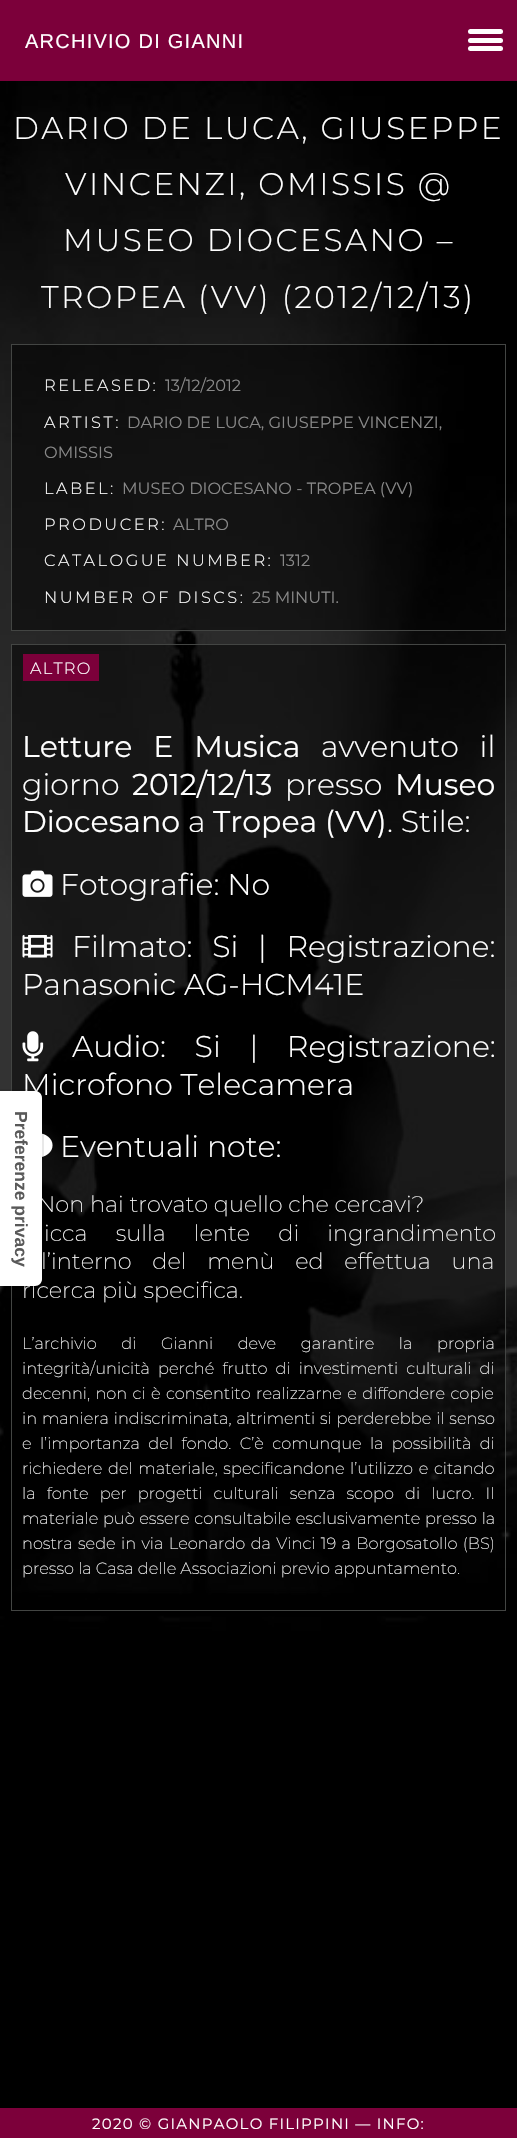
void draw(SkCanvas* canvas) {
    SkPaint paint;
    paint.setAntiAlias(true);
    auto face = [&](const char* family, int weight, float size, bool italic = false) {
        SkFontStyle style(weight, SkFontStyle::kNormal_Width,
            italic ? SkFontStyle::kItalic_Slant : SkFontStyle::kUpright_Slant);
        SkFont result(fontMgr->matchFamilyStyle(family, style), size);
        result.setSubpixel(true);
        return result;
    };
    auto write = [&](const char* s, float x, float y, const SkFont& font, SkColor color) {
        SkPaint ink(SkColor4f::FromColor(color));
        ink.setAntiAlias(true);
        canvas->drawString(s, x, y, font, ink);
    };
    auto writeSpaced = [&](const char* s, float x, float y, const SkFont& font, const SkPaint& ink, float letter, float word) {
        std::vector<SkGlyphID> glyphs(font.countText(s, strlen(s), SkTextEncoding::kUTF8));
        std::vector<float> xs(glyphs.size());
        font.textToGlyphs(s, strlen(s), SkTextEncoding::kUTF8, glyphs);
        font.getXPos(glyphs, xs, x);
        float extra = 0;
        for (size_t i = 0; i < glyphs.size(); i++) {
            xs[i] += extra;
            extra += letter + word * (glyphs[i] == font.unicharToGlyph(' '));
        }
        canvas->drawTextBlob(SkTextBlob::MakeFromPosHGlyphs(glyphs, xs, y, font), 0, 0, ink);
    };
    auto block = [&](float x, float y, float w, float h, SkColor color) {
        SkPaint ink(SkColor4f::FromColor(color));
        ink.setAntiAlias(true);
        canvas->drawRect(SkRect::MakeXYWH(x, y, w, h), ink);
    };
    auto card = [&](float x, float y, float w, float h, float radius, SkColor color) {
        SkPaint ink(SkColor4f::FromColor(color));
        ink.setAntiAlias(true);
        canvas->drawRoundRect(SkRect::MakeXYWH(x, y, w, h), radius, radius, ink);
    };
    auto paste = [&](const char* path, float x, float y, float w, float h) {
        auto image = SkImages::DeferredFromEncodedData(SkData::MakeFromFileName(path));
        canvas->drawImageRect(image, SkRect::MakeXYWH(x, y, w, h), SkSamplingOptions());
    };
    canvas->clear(SK_ColorWHITE);
    block(0, 0, 517, 81, SkColorSetRGB(124, 0, 58));
    auto kFont1 = face("Liberation Sans", 400, 20);
    paint.setColor(SK_ColorWHITE);
    writeSpaced("ARCHIVIO DI GIANNI", 25, 48, kFont1, paint, 1.25f, 0);
    card(468, 29, 35, 5, 2.5f, SK_ColorWHITE);
    card(468, 38, 35, 5, 2.5f, SK_ColorWHITE);
    card(468, 46, 35, 5, 2.5f, SK_ColorWHITE);
    paste("pic1.png", 0, 81, 517, 2027);
    auto kFont2 = face("Montserrat", 300, 31.25f);
    writeSpaced("DARIO DE LUCA, GIUSEPPE", 13, 139, kFont2, paint, 2.5f, 0);
    writeSpaced("VINCENZI, OMISSIS @", 65, 195, kFont2, paint, 2.5f, 0);
    writeSpaced("MUSEO DIOCESANO –", 63, 251, kFont2, paint, 2.5f, 0);
    writeSpaced("TROPEA (VV) (2012/12/13)", 41, 308, kFont2, paint, 2.5f, 0);
    paint.setColor(SkColorSetARGB(128, 0, 0, 0));
    canvas->drawRect(SkRect::MakeXYWH(11.5f, 344.5f, 494, 286), paint);
    paint.setStyle(SkPaint::kStroke_Style);
    paint.setStrokeWidth(1);
    paint.setColor(SkColorSetRGB(67, 69, 67));
    canvas->drawRect(SkRect::MakeXYWH(11.5f, 344.5f, 494, 286), paint);
    auto kFont3 = face("Montserrat", 300, 16.25f);
    paint.setStyle(SkPaint::kFill_Style);
    paint.setColor(SK_ColorWHITE);
    writeSpaced("RELEASED:", 44, 391, kFont3, paint, 2.5f, 0);
    auto kFont4 = face("Montserrat", 400, 16.25f);
    write("13/12/2012", 165, 391, kFont4, SkColorSetRGB(136, 136, 136));
    writeSpaced("ARTIST:", 44, 428, kFont3, paint, 2.5f, 0);
    write("DARIO DE LUCA, GIUSEPPE VINCENZI,", 127, 428, kFont4, SkColorSetRGB(136, 136, 136));
    write("OMISSIS", 44, 458, kFont4, SkColorSetRGB(136, 136, 136));
    writeSpaced("LABEL:", 44, 494, kFont3, paint, 2.5f, 0);
    write("MUSEO DIOCESANO - TROPEA (VV)", 122, 494, kFont4, SkColorSetRGB(136, 136, 136));
    writeSpaced("PRODUCER:", 44, 530, kFont3, paint, 2.5f, 0);
    write("ALTRO", 173, 530, kFont4, SkColorSetRGB(136, 136, 136));
    writeSpaced("CATALOGUE NUMBER:", 44, 566, kFont3, paint, 2.5f, 0);
    write("1312", 280, 566, kFont4, SkColorSetRGB(136, 136, 136));
    writeSpaced("NUMBER OF DISCS:", 44, 603, kFont3, paint, 2.5f, 0);
    write("25 MINUTI.", 252, 603, kFont4, SkColorSetRGB(136, 136, 136));
    block(12, 645, 493, 947, SkColorSetARGB(128, 0, 0, 0));
    paint.setStyle(SkPaint::kStroke_Style);
    paint.setColor(SkColorSetRGB(67, 69, 67));
    canvas->drawRect(SkRect::MakeXYWH(11.5f, 644.5f, 494, 966), paint);
    block(23, 654, 76, 27, SkColorSetRGB(124, 0, 58));
    paint.setStyle(SkPaint::kFill_Style);
    paint.setColor(SK_ColorWHITE);
    writeSpaced("ALTRO", 30, 674, kFont3, paint, 1.25f, 0);
    auto kFont5 = face("Montserrat", 400, 30);
    writeSpaced("Letture E Musica", 22, 757, kFont5, paint, 0, 13);
    auto kFont6 = face("Montserrat", 300, 30);
    writeSpaced("avvenuto il", 321, 757, kFont6, paint, 0, 13);
    write("giorno", 22, 795, kFont6, SK_ColorWHITE);
    write("2012/12/13", 132, 795, kFont5, SK_ColorWHITE);
    write("presso", 285, 795, kFont6, SK_ColorWHITE);
    write("Museo", 395, 795, kFont5, SK_ColorWHITE);
    write("Diocesano", 22, 832, kFont5, SK_ColorWHITE);
    write("a", 188, 832, kFont6, SK_ColorWHITE);
    write("Tropea (VV)", 213, 832, kFont5, SK_ColorWHITE);
    write(". Stile:", 387, 832, kFont6, SK_ColorWHITE);
    paste("pic2.png", 22, 870, 31, 27);
    write("Fotografie: No", 60, 895, kFont6, SK_ColorWHITE);
    paste("pic3.png", 22, 935, 31, 23);
    writeSpaced("Filmato: Si | Registrazione:", 72, 957, kFont6, paint, 0, 12);
    write("Panasonic AG-HCM41E", 22, 995, kFont6, SK_ColorWHITE);
    paste("pic4.png", 22, 1031, 22, 31);
    writeSpaced("Audio: Si | Registrazione:", 72, 1057, kFont6, paint, 0, 21);
    write("Microfono Telecamera", 22, 1095, kFont6, SK_ColorWHITE);
    paste("pic5.png", 42, 1133, 11, 24);
    write("Eventuali note:", 60, 1157, kFont6, SK_ColorWHITE);
    auto kFont7 = face("Montserrat", 200, 22.5f);
    write("Non hai trovato quello che cercavi?", 37, 1212, kFont7, SK_ColorWHITE);
    writeSpaced("icca sulla lente di ingrandimento", 44, 1241, kFont7, paint, 0, 22.5f);
    writeSpaced("l’interno del menù ed effettua una", 41, 1269, kFont7, paint, 0, 15);
    write("ricerca più specifica.", 22, 1298, kFont7, SK_ColorWHITE);
    auto kFont8 = face("Montserrat", 200, 16.25f);
    writeSpaced("L’archivio di Gianni deve garantire la propria", 22, 1349, kFont8, paint, 0, 20.5f);
    writeSpaced("integrità/unicità perché frutto di investimenti culturali di", 22, 1374, kFont8, paint, 0, 4);
    writeSpaced("decenni, non ci è consentito realizzarne e diffondere copie", 22, 1399, kFont8, paint, 0, 1.25f);
    writeSpaced("in maniera indiscriminata, altrimenti si perderebbe il senso", 22, 1424, kFont8, paint, 0, 0.75f);
    writeSpaced("e l’importanza del fondo. C’è comunque la possibilità di", 22, 1449, kFont8, paint, 0, 4.25f);
    writeSpaced("richiedere del materiale, specificandone l’utilizzo e citando", 22, 1474, kFont8, paint, 0, 1.5f);
    writeSpaced("la fonte per progetti culturali senza scopo di lucro. Il", 22, 1499, kFont8, paint, 0, 7);
    writeSpaced("materiale può essere consultabile esclusivamente presso la", 22, 1524, kFont8, paint, 0, 0.5f);
    writeSpaced("nostra sede in via Leonardo da Vinci 19 a Borgosatollo (BS)", 22, 1549, kFont8, paint, 0, 1.25f);
    write("presso la Casa delle Associazioni previo appuntamento.", 22, 1574, kFont8, SK_ColorWHITE);
    paint.setStyle(SkPaint::kStroke_Style);
    paint.setStrokeWidth(1.2f);
    paint.setColor(SkColorSetARGB(38, 0, 0, 0));
    canvas->drawPath(SkPathBuilder().moveTo(43, 1098).lineTo(43, 1279).cubicTo(43, 1283.5f, 39.5f, 1287, 35, 1287).lineTo(-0.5f, 1287).lineTo(-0.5f, 1090).lineTo(35, 1090).cubicTo(39.5f, 1090, 43, 1093.5f, 43, 1098).close().detach(), paint);
    paint.setStyle(SkPaint::kFill_Style);
    paint.setColor(SK_ColorWHITE);
    canvas->drawPath(SkPathBuilder().moveTo(42, 1098).lineTo(42, 1279).cubicTo(42, 1283, 39, 1286, 35, 1286).lineTo(0, 1286).lineTo(0, 1091).lineTo(35, 1091).cubicTo(39, 1091, 42, 1094, 42, 1098).close().detach(), paint);
    auto kFont9 = face("Liberation Sans", 700, 17.5f);
    canvas->save();
    canvas->rotate(90, 15, 1111);
    write("Preferenze privacy", 15, 1111, kFont9, SkColorSetRGB(89, 89, 89));
    canvas->restore();
    block(0, 2108, 517, 30, SkColorSetRGB(124, 0, 58));
    auto kFont10 = face("Montserrat", 400, 15);
    writeSpaced("2020 © GIANPAOLO FILIPPINI — INFO:", 92, 2129, kFont10, paint, 1.25f, 0);
}
